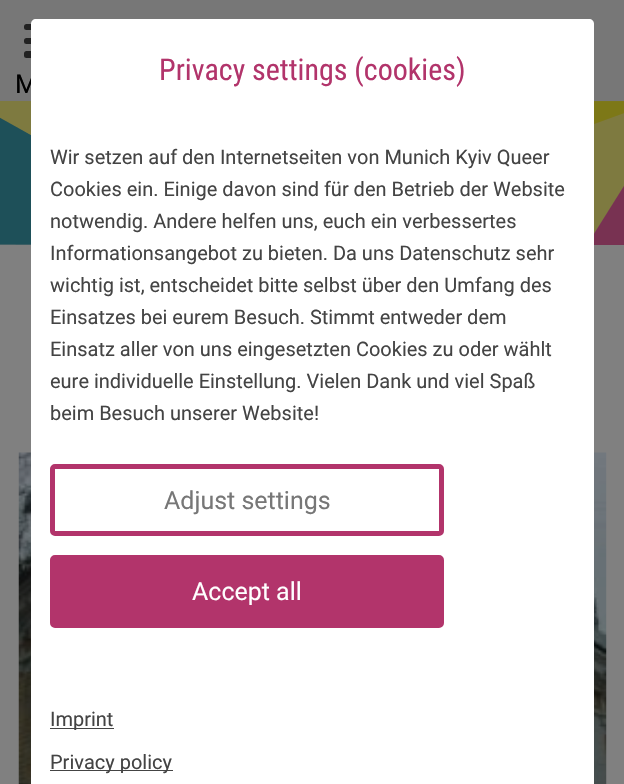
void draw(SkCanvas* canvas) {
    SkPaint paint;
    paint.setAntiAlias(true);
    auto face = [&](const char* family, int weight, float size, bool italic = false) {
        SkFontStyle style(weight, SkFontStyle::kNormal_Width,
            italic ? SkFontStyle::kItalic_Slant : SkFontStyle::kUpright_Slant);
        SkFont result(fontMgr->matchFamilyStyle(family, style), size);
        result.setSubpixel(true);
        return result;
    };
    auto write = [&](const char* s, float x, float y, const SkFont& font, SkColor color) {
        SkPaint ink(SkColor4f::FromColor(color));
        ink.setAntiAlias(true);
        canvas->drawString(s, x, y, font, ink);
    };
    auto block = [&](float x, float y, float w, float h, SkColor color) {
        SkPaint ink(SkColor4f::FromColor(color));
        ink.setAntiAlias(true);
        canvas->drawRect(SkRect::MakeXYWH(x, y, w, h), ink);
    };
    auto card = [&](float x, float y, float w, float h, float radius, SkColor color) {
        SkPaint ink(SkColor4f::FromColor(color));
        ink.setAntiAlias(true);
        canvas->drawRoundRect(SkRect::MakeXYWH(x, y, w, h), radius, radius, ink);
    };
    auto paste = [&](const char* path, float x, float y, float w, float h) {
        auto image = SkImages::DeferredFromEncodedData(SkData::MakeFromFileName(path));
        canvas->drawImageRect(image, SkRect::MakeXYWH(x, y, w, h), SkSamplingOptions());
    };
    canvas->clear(SkColorSetRGB(128, 128, 128));
    block(0, 0, 624, 245, SkColorSetRGB(119, 119, 119));
    card(24, 38, 49, 6, 2.5f, SkColorSetRGB(34, 34, 34));
    card(24, 24, 49, 6, 2.5f, SkColorSetRGB(34, 34, 34));
    card(24, 51, 49, 7, 2.5f, SkColorSetRGB(34, 34, 34));
    auto kFont1 = face("Roboto", 400, 26);
    write("M", 15, 93, kFont1, SK_ColorBLACK);
    paste("pic1.png", 0, 101, 624, 144);
    paste("pic2.png", 18, 452, 589, 332);
    paint.setColor(SK_ColorWHITE);
    canvas->drawPath(SkPathBuilder().moveTo(36, 19).lineTo(589, 19).cubicTo(592, 19, 594, 21, 594, 24).lineTo(594, 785).lineTo(31, 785).lineTo(31, 24).cubicTo(31, 21, 33, 19, 36, 19).close().detach(), paint);
    auto kFont2 = face("Roboto Condensed", 400, 30);
    write("Privacy settings (cookies)", 159, 80, kFont2, SkColorSetRGB(178, 52, 107));
    auto kFont3 = face("Roboto", 400, 20);
    write("Wir setzen auf den Internetseiten von Munich Kyiv Queer", 50, 164, kFont3, SkColorSetRGB(68, 68, 68));
    write("Cookies ein. Einige davon sind für den Betrieb der Website", 50, 196, kFont3, SkColorSetRGB(68, 68, 68));
    write("notwendig. Andere helfen uns, euch ein verbessertes", 50, 228, kFont3, SkColorSetRGB(68, 68, 68));
    write("Informationsangebot zu bieten. Da uns Datenschutz sehr", 50, 260, kFont3, SkColorSetRGB(68, 68, 68));
    write("wichtig ist, entscheidet bitte selbst über den Umfang des", 50, 292, kFont3, SkColorSetRGB(68, 68, 68));
    write("Einsatzes bei eurem Besuch. Stimmt entweder dem", 50, 324, kFont3, SkColorSetRGB(68, 68, 68));
    write("Einsatz aller von uns eingesetzten Cookies zu oder wählt", 50, 356, kFont3, SkColorSetRGB(68, 68, 68));
    write("eure individuelle Einstellung. Vielen Dank und viel Spaß", 50, 388, kFont3, SkColorSetRGB(68, 68, 68));
    write("beim Besuch unserer Website!", 50, 420, kFont3, SkColorSetRGB(68, 68, 68));
    paint.setStyle(SkPaint::kStroke_Style);
    paint.setStrokeWidth(5);
    paint.setColor(SkColorSetRGB(178, 52, 107));
    canvas->drawRoundRect(SkRect::MakeXYWH(52.5f, 466.5f, 389, 67), 2.5f, 2.5f, paint);
    auto kFont4 = face("Roboto", 400, 25);
    write("Adjust settings", 164, 509, kFont4, SkColorSetRGB(119, 119, 119));
    paint.setStyle(SkPaint::kFill_Style);
    canvas->drawRoundRect(SkRect::MakeXYWH(52.5f, 557.5f, 389, 68), 2.5f, 2.5f, paint);
    paint.setStyle(SkPaint::kStroke_Style);
    canvas->drawRoundRect(SkRect::MakeXYWH(52.5f, 557.5f, 389, 68), 2.5f, 2.5f, paint);
    write("Accept all", 192, 600, kFont4, SK_ColorWHITE);
    block(50, 728, 64, 1, SkColorSetRGB(68, 68, 68));
    write("Imprint", 50, 726, kFont3, SkColorSetRGB(68, 68, 68));
    block(50, 770, 123, 1, SkColorSetRGB(68, 68, 68));
    write("Privacy policy", 50, 769, kFont3, SkColorSetRGB(68, 68, 68));
}
